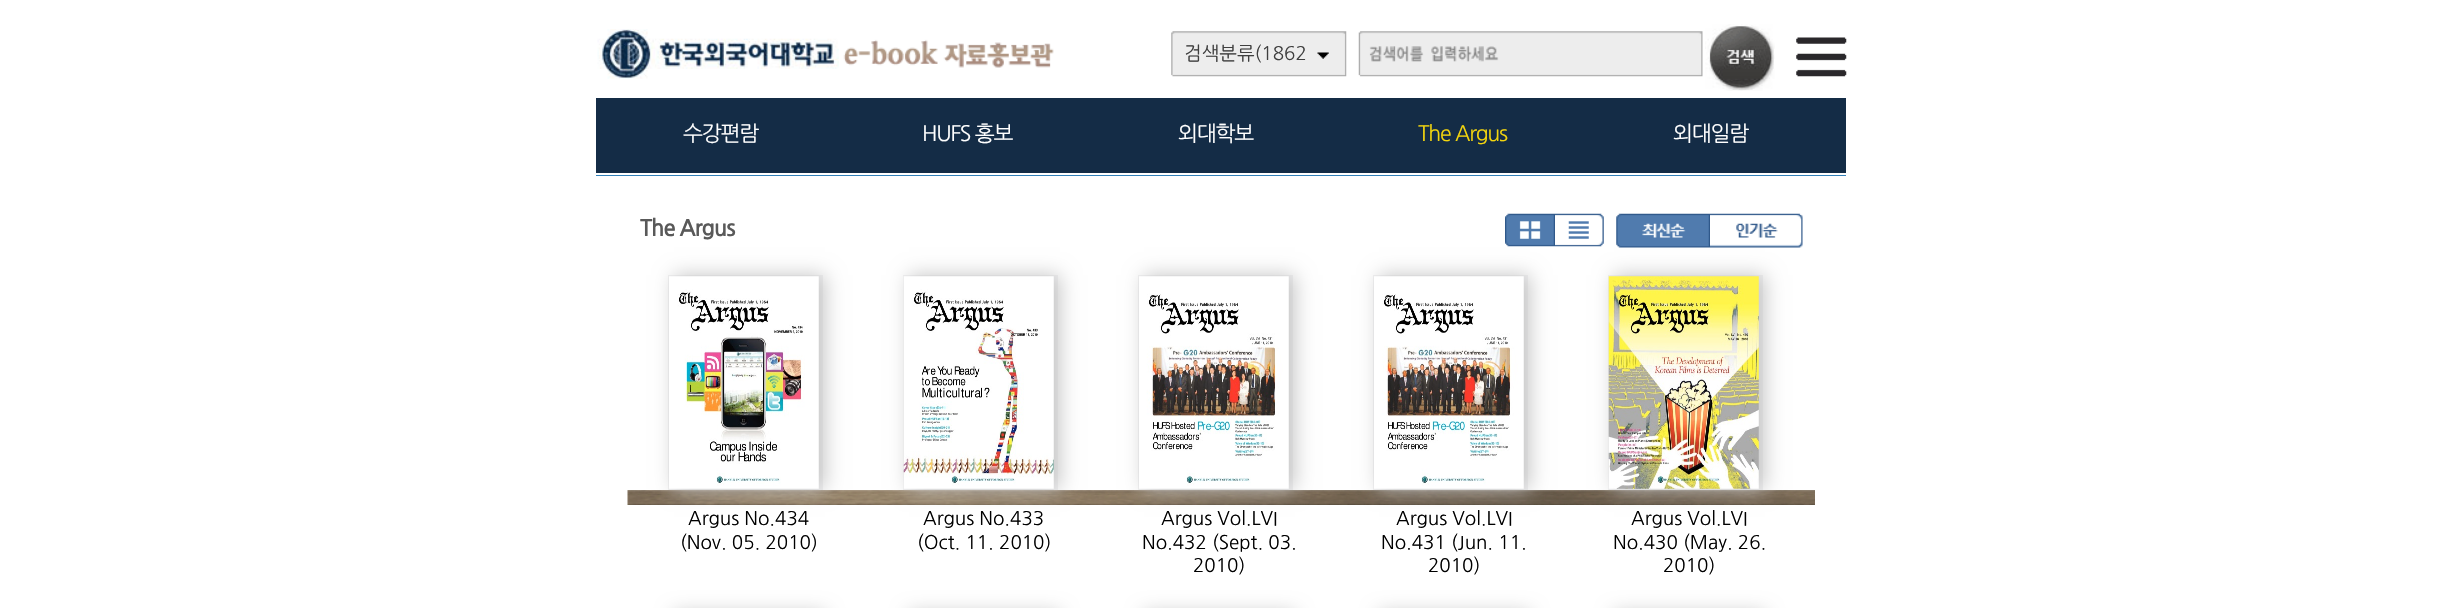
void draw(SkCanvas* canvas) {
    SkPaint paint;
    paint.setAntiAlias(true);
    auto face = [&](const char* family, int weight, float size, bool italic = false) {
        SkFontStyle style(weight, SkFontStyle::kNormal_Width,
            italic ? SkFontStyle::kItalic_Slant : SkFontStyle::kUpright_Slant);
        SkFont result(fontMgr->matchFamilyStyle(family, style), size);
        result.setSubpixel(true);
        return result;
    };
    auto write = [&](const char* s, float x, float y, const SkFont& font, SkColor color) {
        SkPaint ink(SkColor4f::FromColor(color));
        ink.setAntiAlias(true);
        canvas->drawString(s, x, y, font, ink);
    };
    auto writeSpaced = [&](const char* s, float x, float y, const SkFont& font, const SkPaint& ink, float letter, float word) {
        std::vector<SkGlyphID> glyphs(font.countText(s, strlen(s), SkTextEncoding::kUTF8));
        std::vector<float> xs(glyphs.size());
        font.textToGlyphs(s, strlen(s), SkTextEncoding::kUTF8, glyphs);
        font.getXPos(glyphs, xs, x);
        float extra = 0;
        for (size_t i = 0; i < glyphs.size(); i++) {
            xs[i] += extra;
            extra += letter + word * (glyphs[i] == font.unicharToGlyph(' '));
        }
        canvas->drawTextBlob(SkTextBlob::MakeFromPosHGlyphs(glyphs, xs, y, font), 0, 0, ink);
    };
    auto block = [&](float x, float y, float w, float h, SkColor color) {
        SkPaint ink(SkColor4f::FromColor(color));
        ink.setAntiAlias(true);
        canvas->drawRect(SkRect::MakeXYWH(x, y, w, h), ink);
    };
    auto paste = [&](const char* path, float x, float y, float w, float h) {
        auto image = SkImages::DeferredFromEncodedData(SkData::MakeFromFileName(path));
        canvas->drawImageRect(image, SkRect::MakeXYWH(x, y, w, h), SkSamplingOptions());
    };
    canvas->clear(SK_ColorWHITE);
    paste("pic1.png", 597, 29, 457, 50);
    paste("pic2.png", 1171, 31, 176, 46);
    auto kFont1 = face("NanumGothic", 400, 18.75f);
    write("검색분류(1862", 1184, 60, kFont1, SkColorSetRGB(63, 63, 63));
    paste("pic3.png", 1358, 31, 345, 46);
    paste("pic4.png", 1705, 24, 70, 67);
    paste("pic5.png", 1796, 37, 51, 40);
    block(596, 98, 1250, 75, SkColorSetRGB(20, 44, 70));
    auto kFont2 = face("NanumGothic", 400, 21.25f);
    paint.setColor(SK_ColorWHITE);
    writeSpaced("수강편람", 683, 141, kFont2, paint, -1.25f, 0);
    writeSpaced("HUFS 홍보", 922, 141, kFont2, paint, -1.25f, 0);
    writeSpaced("외대학보", 1178, 141, kFont2, paint, -1.25f, 0);
    paint.setColor(SkColorSetRGB(243, 213, 14));
    writeSpaced("The Argus", 1418, 141, kFont2, paint, -1.25f, 0);
    paint.setColor(SK_ColorWHITE);
    writeSpaced("외대일람", 1673, 141, kFont2, paint, -1.25f, 0);
    block(596, 175, 1250, 1, SkColorSetRGB(49, 128, 185));
    auto kFont3 = face("NanumGothic", 700, 22.5f);
    paint.setColor(SkColorSetRGB(89, 89, 89));
    writeSpaced("The Argus", 640, 236, kFont3, paint, -1.25f, 0);
    paste("pic6.png", 1505, 213, 50, 34);
    paste("pic7.png", 1555, 213, 49, 34);
    paste("pic8.png", 1616, 213, 94, 35);
    paste("pic9.png", 1710, 213, 93, 35);
    paste("pic10.png", 627, 490, 1188, 15);
    block(668, 275, 155, 215, SkColorSetRGB(241, 241, 242));
    paint.setColor(SkColorSetRGB(198, 198, 198));
    paint.setMaskFilter(SkMaskFilter::MakeBlur(kNormal_SkBlurStyle, 9.5f));
    canvas->drawRect(SkRect::MakeXYWH(674, 275, 151, 214), paint);
    paint.setMaskFilter(nullptr);
    paste("pic11.png", 669, 276, 150, 213);
    write("Argus No.434", 688, 525, kFont1, SK_ColorBLACK);
    write("(Nov. 05. 2010)", 680, 549, kFont1, SK_ColorBLACK);
    block(903, 275, 155, 215, SkColorSetRGB(241, 241, 242));
    paint.setMaskFilter(SkMaskFilter::MakeBlur(kNormal_SkBlurStyle, 9.5f));
    canvas->drawRect(SkRect::MakeXYWH(909, 275, 151, 214), paint);
    paint.setMaskFilter(nullptr);
    paste("pic12.png", 903, 276, 151, 213);
    write("Argus No.433", 923, 525, kFont1, SK_ColorBLACK);
    write("(Oct. 11. 2010)", 917, 549, kFont1, SK_ColorBLACK);
    block(1138, 275, 155, 215, SkColorSetRGB(241, 241, 242));
    paint.setMaskFilter(SkMaskFilter::MakeBlur(kNormal_SkBlurStyle, 9.5f));
    canvas->drawRect(SkRect::MakeXYWH(1144, 275, 151, 214), paint);
    paint.setMaskFilter(nullptr);
    paste("pic13.png", 1139, 276, 150, 213);
    write("Argus Vol.LVI", 1161, 525, kFont1, SK_ColorBLACK);
    write("No.432 (Sept. 03.", 1142, 549, kFont1, SK_ColorBLACK);
    write("2010)", 1193, 572, kFont1, SK_ColorBLACK);
    block(1373, 275, 155, 215, SkColorSetRGB(241, 241, 242));
    paint.setMaskFilter(SkMaskFilter::MakeBlur(kNormal_SkBlurStyle, 9.5f));
    canvas->drawRect(SkRect::MakeXYWH(1379, 275, 151, 214), paint);
    paint.setMaskFilter(nullptr);
    paste("pic13.png", 1374, 276, 150, 213);
    write("Argus Vol.LVI", 1396, 525, kFont1, SK_ColorBLACK);
    write("No.431 (Jun. 11.", 1381, 549, kFont1, SK_ColorBLACK);
    write("2010)", 1428, 572, kFont1, SK_ColorBLACK);
    block(1608, 275, 155, 215, SkColorSetRGB(241, 241, 242));
    paint.setMaskFilter(SkMaskFilter::MakeBlur(kNormal_SkBlurStyle, 9.5f));
    canvas->drawRect(SkRect::MakeXYWH(1614, 275, 151, 214), paint);
    paint.setMaskFilter(nullptr);
    paste("pic14.png", 1608, 276, 151, 213);
    write("Argus Vol.LVI", 1631, 525, kFont1, SK_ColorBLACK);
    write("No.430 (May. 26.", 1613, 549, kFont1, SK_ColorBLACK);
    write("2010)", 1663, 572, kFont1, SK_ColorBLACK);
    paint.setMaskFilter(SkMaskFilter::MakeBlur(kNormal_SkBlurStyle, 9.5f));
    canvas->drawRect(SkRect::MakeXYWH(674, 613, 151, 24), paint);
    paint.setMaskFilter(nullptr);
    paint.setMaskFilter(SkMaskFilter::MakeBlur(kNormal_SkBlurStyle, 9.5f));
    canvas->drawRect(SkRect::MakeXYWH(909, 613, 151, 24), paint);
    paint.setMaskFilter(nullptr);
    paint.setMaskFilter(SkMaskFilter::MakeBlur(kNormal_SkBlurStyle, 9.5f));
    canvas->drawRect(SkRect::MakeXYWH(1144, 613, 151, 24), paint);
    paint.setMaskFilter(nullptr);
    paint.setMaskFilter(SkMaskFilter::MakeBlur(kNormal_SkBlurStyle, 9.5f));
    canvas->drawRect(SkRect::MakeXYWH(1379, 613, 151, 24), paint);
    paint.setMaskFilter(nullptr);
    paint.setMaskFilter(SkMaskFilter::MakeBlur(kNormal_SkBlurStyle, 9.5f));
    canvas->drawRect(SkRect::MakeXYWH(1614, 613, 151, 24), paint);
    paint.setMaskFilter(nullptr);
}
